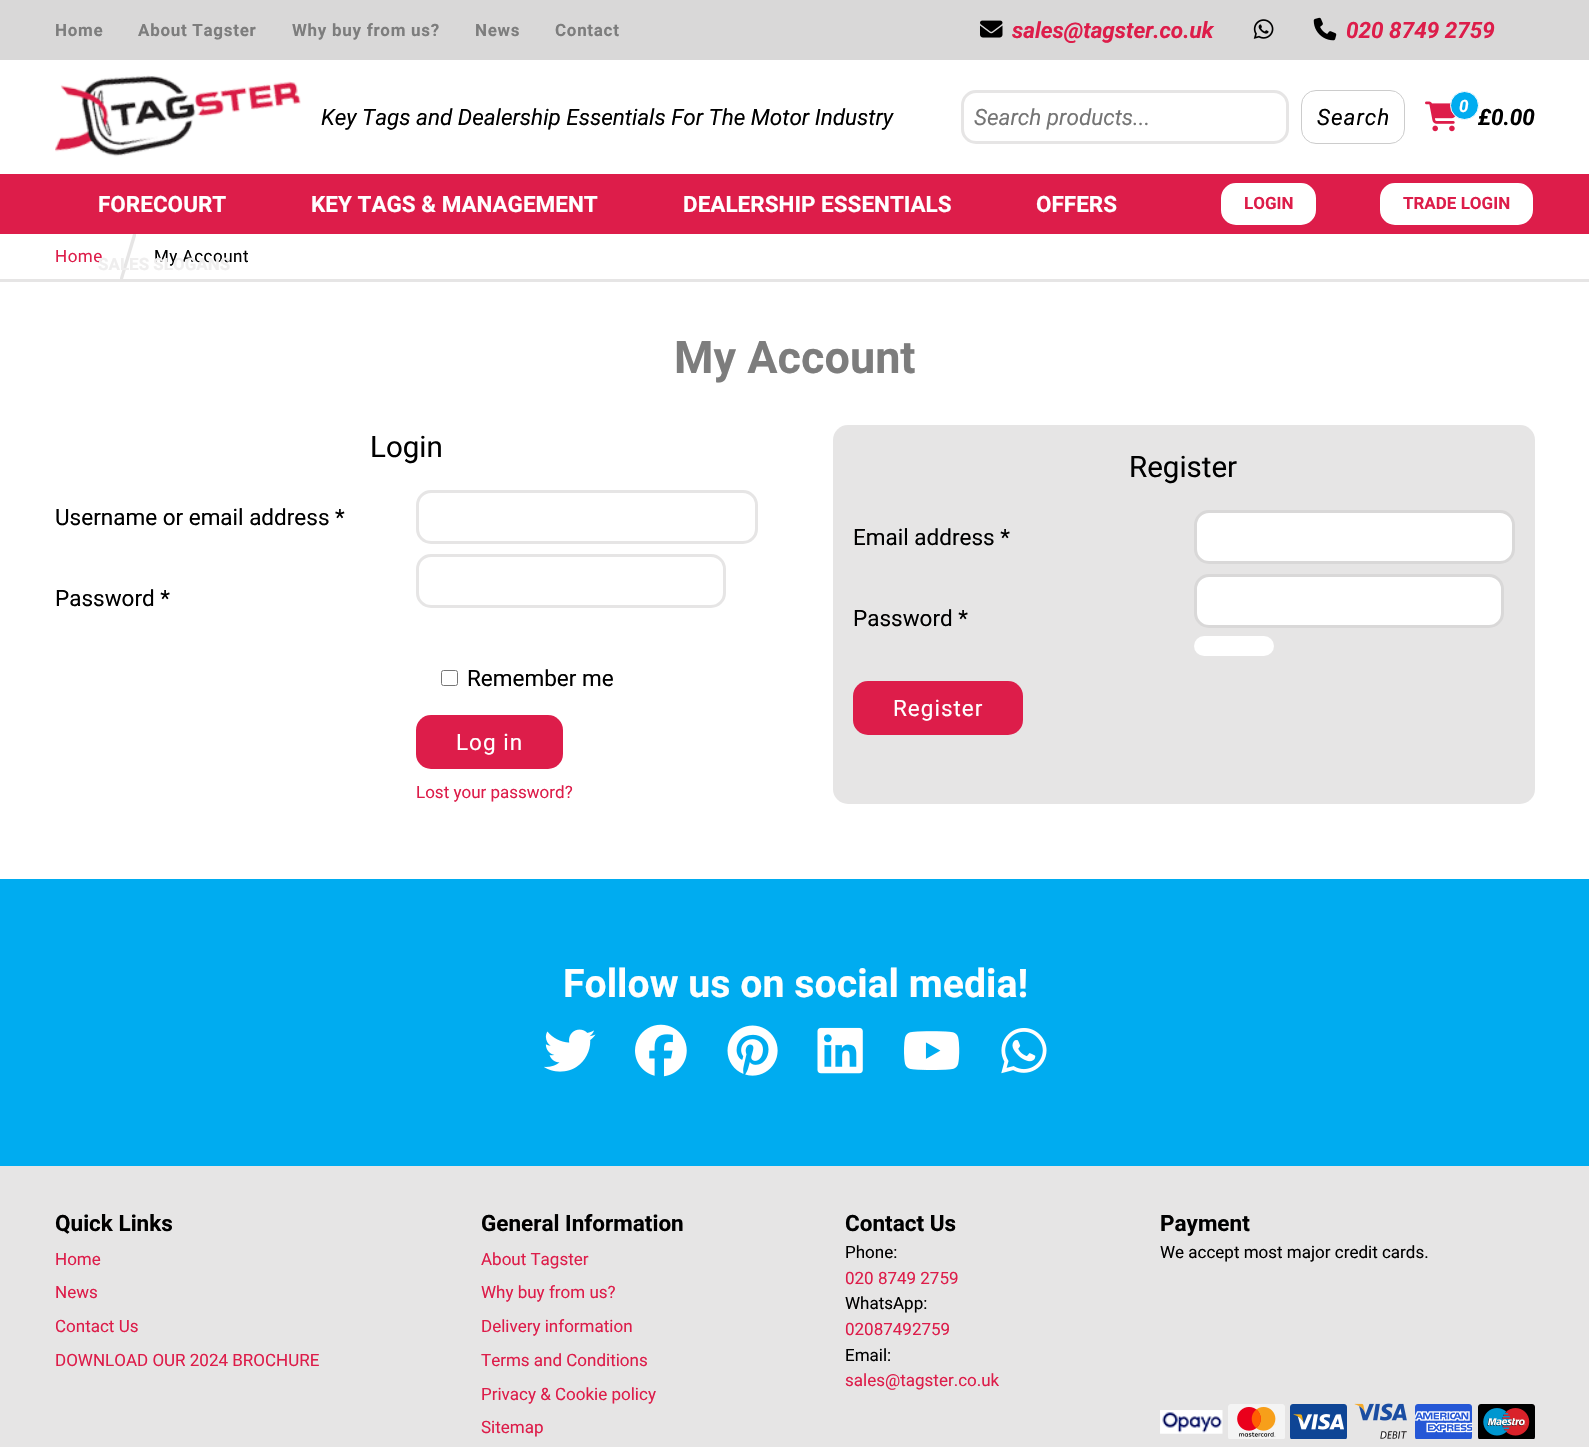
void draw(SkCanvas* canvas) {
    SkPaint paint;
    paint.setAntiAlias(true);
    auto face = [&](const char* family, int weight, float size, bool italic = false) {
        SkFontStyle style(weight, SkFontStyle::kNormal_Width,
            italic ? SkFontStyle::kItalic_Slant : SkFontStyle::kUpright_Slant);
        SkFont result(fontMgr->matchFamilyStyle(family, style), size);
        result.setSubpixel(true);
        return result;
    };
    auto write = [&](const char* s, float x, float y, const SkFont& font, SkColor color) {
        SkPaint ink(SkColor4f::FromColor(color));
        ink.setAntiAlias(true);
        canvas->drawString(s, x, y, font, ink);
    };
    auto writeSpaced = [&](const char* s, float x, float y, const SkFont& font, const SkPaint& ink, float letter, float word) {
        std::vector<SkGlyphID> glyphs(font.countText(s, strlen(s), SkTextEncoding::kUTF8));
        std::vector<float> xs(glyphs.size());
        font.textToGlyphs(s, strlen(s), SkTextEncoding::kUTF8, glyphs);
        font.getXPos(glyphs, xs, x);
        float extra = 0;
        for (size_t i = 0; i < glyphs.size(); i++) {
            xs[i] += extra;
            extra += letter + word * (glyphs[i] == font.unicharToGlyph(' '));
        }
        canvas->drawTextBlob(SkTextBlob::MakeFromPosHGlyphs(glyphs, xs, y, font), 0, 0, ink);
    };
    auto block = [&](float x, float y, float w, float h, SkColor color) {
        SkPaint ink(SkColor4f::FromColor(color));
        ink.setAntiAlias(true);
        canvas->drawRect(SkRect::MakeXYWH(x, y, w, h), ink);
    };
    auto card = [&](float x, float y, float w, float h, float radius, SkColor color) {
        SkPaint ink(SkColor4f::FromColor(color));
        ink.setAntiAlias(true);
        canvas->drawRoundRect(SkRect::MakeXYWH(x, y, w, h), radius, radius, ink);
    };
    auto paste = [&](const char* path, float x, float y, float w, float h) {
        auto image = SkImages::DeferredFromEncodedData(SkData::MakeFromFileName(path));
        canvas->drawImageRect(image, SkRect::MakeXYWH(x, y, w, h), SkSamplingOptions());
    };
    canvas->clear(SK_ColorWHITE);
    block(0, 0, 1589, 60, SkColorSetRGB(217, 216, 216));
    auto kFont1 = face("Roboto", 700, 17);
    paint.setColor(SkColorSetRGB(125, 125, 125));
    writeSpaced("Home", 55, 36, kFont1, paint, 0.7f, 0);
    writeSpaced("About Tagster", 138, 36, kFont1, paint, 0.7f, 0);
    writeSpaced("Why buy from us?", 292, 36, kFont1, paint, 0.7f, 0);
    writeSpaced("News", 475, 36, kFont1, paint, 0.7f, 0);
    writeSpaced("Contact", 555, 36, kFont1, paint, 0.7f, 0);
    paste("pic1.png", 980, 20, 23, 18);
    auto kFont2 = face("Roboto", 700, 22.5f, true);
    write("sales@tagster.co.uk", 1012, 38, kFont2, SkColorSetRGB(221, 29, 74));
    paste("pic2.png", 1253, 19, 21, 20);
    paste("pic3.png", 1313, 17, 24, 24);
    write("020 8749 2759", 1346, 38, kFont2, SkColorSetRGB(221, 29, 74));
    paste("pic4.png", 55, 75, 246, 82);
    auto kFont3 = face("Roboto", 400, 22.5f, true);
    write("Key Tags and Dealership Essentials For The Motor Industry", 321, 125, kFont3, SK_ColorBLACK);
    paint.setStyle(SkPaint::kStroke_Style);
    paint.setStrokeWidth(3);
    paint.setColor(SkColorSetRGB(230, 229, 229));
    canvas->drawRoundRect(SkRect::MakeXYWH(962.5f, 91.5f, 325, 51), 13.5f, 13.5f, paint);
    write("Search products...", 974, 125, kFont3, SkColorSetRGB(117, 117, 117));
    paint.setStrokeWidth(1);
    paint.setColor(SkColorSetRGB(204, 204, 204));
    canvas->drawRoundRect(SkRect::MakeXYWH(1301.5f, 90.5f, 103, 53), 14.5f, 14.5f, paint);
    paint.setStyle(SkPaint::kFill_Style);
    paint.setColor(SK_ColorBLACK);
    writeSpaced("Search", 1317, 125, kFont3, paint, 1, 0);
    paste("pic5.png", 1425, 101, 31, 31);
    write("£0.00", 1478, 125, kFont2, SK_ColorBLACK);
    paint.setColor(SkColorSetRGB(0, 172, 240));
    canvas->drawCircle(1464.5f, 105.5f, 14, paint);
    paint.setStyle(SkPaint::kStroke_Style);
    paint.setColor(SK_ColorWHITE);
    canvas->drawCircle(1464.5f, 105.5f, 14, paint);
    auto kFont4 = face("Roboto", 700, 17, true);
    write("0", 1459, 112, kFont4, SK_ColorWHITE);
    block(0, 174, 1589, 60, SkColorSetRGB(221, 29, 74));
    auto kFont5 = face("Roboto", 700, 22.5f);
    write("FORECOURT", 98, 212, kFont5, SK_ColorWHITE);
    auto kFont6 = face("Roboto", 400, 17);
    paint.setStyle(SkPaint::kFill_Style);
    paint.setColor(SkColorSetRGB(221, 29, 74));
    writeSpaced("Home", 55, 262, kFont6, paint, 0.5f, 0);
    paint.setColor(SkColorSetRGB(230, 229, 229));
    canvas->drawPath(SkPathBuilder().moveTo(120, 278).lineTo(133, 234).lineTo(136, 234).lineTo(136, 236).lineTo(123, 279).lineTo(120, 279).close().detach(), paint);
    paint.setColor(SK_ColorBLACK);
    writeSpaced("My Account", 154, 262, kFont6, paint, 0.5f, 0);
    write("SALES SLOGANS", 98, 270, kFont1, SkColorSetRGB(239, 238, 238));
    write("KEY TAGS & MANAGEMENT", 311, 212, kFont5, SK_ColorWHITE);
    write("DEALERSHIP ESSENTIALS", 683, 212, kFont5, SK_ColorWHITE);
    write("OFFERS", 1036, 212, kFont5, SK_ColorWHITE);
    paint.setColor(SK_ColorWHITE);
    canvas->drawRoundRect(SkRect::MakeXYWH(1222.5f, 184.5f, 92, 39), 13.5f, 13.5f, paint);
    paint.setStyle(SkPaint::kStroke_Style);
    paint.setStrokeWidth(3);
    canvas->drawRoundRect(SkRect::MakeXYWH(1222.5f, 184.5f, 92, 39), 13.5f, 13.5f, paint);
    write("LOGIN", 1244, 209, kFont1, SkColorSetRGB(221, 29, 74));
    paint.setStyle(SkPaint::kFill_Style);
    canvas->drawRoundRect(SkRect::MakeXYWH(1381.5f, 184.5f, 150, 39), 13.5f, 13.5f, paint);
    paint.setStyle(SkPaint::kStroke_Style);
    canvas->drawRoundRect(SkRect::MakeXYWH(1381.5f, 184.5f, 150, 39), 13.5f, 13.5f, paint);
    write("TRADE LOGIN", 1403, 209, kFont1, SkColorSetRGB(221, 29, 74));
    block(0, 279, 1589, 3, SkColorSetRGB(230, 229, 229));
    auto kFont7 = face("Roboto", 700, 45);
    write("My Account", 674, 373, kFont7, SkColorSetRGB(125, 125, 125));
    auto kFont8 = face("Roboto", 400, 29.5f);
    write("Login", 370, 457, kFont8, SK_ColorBLACK);
    auto kFont9 = face("Roboto", 400, 22.5f);
    write("Username or email address *", 55, 525, kFont9, SK_ColorBLACK);
    paint.setColor(SkColorSetRGB(230, 229, 229));
    canvas->drawRoundRect(SkRect::MakeXYWH(417.5f, 491.5f, 339, 51), 13.5f, 13.5f, paint);
    write("Password *", 55, 606, kFont9, SK_ColorBLACK);
    canvas->drawRoundRect(SkRect::MakeXYWH(417.5f, 555.5f, 307, 51), 13.5f, 13.5f, paint);
    paint.setStrokeWidth(1);
    paint.setColor(SkColorSetRGB(118, 118, 118));
    canvas->drawRoundRect(SkRect::MakeXYWH(441.5f, 670.5f, 16, 15), 2, 2, paint);
    write("Remember me", 467, 686, kFont9, SK_ColorBLACK);
    card(416, 715, 147, 54, 15, SkColorSetRGB(221, 29, 74));
    paint.setStyle(SkPaint::kFill_Style);
    paint.setColor(SK_ColorWHITE);
    writeSpaced("Log in", 456, 750, kFont9, paint, 1, 0);
    write("Lost your password?", 416, 798, kFont6, SkColorSetRGB(221, 29, 74));
    card(833, 425, 702, 379, 15, SkColorSetRGB(230, 229, 229));
    write("Register", 1129, 477, kFont8, SK_ColorBLACK);
    write("Email address *", 853, 545, kFont9, SK_ColorBLACK);
    canvas->drawRoundRect(SkRect::MakeXYWH(1195.5f, 511.5f, 318, 51), 13.5f, 13.5f, paint);
    paint.setStyle(SkPaint::kStroke_Style);
    paint.setStrokeWidth(3);
    paint.setColor(SkColorSetRGB(217, 216, 216));
    canvas->drawRoundRect(SkRect::MakeXYWH(1195.5f, 511.5f, 318, 51), 13.5f, 13.5f, paint);
    write("Password *", 853, 626, kFont9, SK_ColorBLACK);
    paint.setStyle(SkPaint::kFill_Style);
    paint.setColor(SK_ColorWHITE);
    canvas->drawRoundRect(SkRect::MakeXYWH(1195.5f, 575.5f, 307, 51), 13.5f, 13.5f, paint);
    paint.setStyle(SkPaint::kStroke_Style);
    paint.setColor(SkColorSetRGB(217, 216, 216));
    canvas->drawRoundRect(SkRect::MakeXYWH(1195.5f, 575.5f, 307, 51), 13.5f, 13.5f, paint);
    card(1194, 636, 80, 20, 10, SK_ColorWHITE);
    card(853, 681, 170, 54, 15, SkColorSetRGB(221, 29, 74));
    paint.setStyle(SkPaint::kFill_Style);
    paint.setColor(SK_ColorWHITE);
    writeSpaced("Register", 893, 716, kFont9, paint, 1, 0);
    block(0, 879, 1589, 287, SkColorSetRGB(0, 172, 240));
    auto kFont10 = face("Roboto", 700, 39.25f);
    write("Follow us on social media!", 563, 997, kFont10, SK_ColorWHITE);
    paste("pic6.png", 544, 1029, 52, 43);
    paste("pic7.png", 635, 1024, 52, 53);
    paste("pic8.png", 727, 1025, 51, 51);
    paste("pic9.png", 817, 1027, 46, 47);
    paste("pic10.png", 904, 1031, 56, 39);
    paste("pic11.png", 1001, 1028, 46, 46);
    block(0, 1166, 1589, 281, SkColorSetRGB(230, 229, 229));
    write("Quick Links", 55, 1231, kFont5, SK_ColorBLACK);
    write("Home", 55, 1265, kFont6, SkColorSetRGB(221, 29, 74));
    write("News", 55, 1298, kFont6, SkColorSetRGB(221, 29, 74));
    write("Contact Us", 55, 1332, kFont6, SkColorSetRGB(221, 29, 74));
    write("DOWNLOAD OUR 2024 BROCHURE", 55, 1366, kFont6, SkColorSetRGB(221, 29, 74));
    write("General Information", 481, 1231, kFont5, SK_ColorBLACK);
    write("About Tagster", 481, 1265, kFont6, SkColorSetRGB(221, 29, 74));
    write("Why buy from us?", 481, 1298, kFont6, SkColorSetRGB(221, 29, 74));
    write("Delivery information", 481, 1332, kFont6, SkColorSetRGB(221, 29, 74));
    write("Terms and Conditions", 481, 1366, kFont6, SkColorSetRGB(221, 29, 74));
    write("Privacy & Cookie policy", 481, 1400, kFont6, SkColorSetRGB(221, 29, 74));
    write("Sitemap", 481, 1433, kFont6, SkColorSetRGB(221, 29, 74));
    write("Contact Us", 845, 1231, kFont5, SK_ColorBLACK);
    write("Phone:", 845, 1258, kFont6, SK_ColorBLACK);
    write("020 8749 2759", 845, 1284, kFont6, SkColorSetRGB(221, 29, 74));
    write("WhatsApp:", 845, 1309, kFont6, SK_ColorBLACK);
    write("02087492759", 845, 1335, kFont6, SkColorSetRGB(221, 29, 74));
    write("Email:", 845, 1361, kFont6, SK_ColorBLACK);
    write("sales@tagster.co.uk", 845, 1386, kFont6, SkColorSetRGB(221, 29, 74));
    write("Payment", 1160, 1231, kFont5, SK_ColorBLACK);
    write("We accept most major credit cards.", 1160, 1258, kFont6, SK_ColorBLACK);
    paste("pic12.png", 1160, 1410, 63, 24);
    paste("pic13.png", 1228, 1404, 57, 35);
    paste("pic14.png", 1290, 1404, 57, 35);
    paste("pic15.png", 1354, 1403, 53, 36);
    paste("pic16.png", 1415, 1404, 58, 35);
    paste("pic17.png", 1478, 1404, 57, 35);
}
